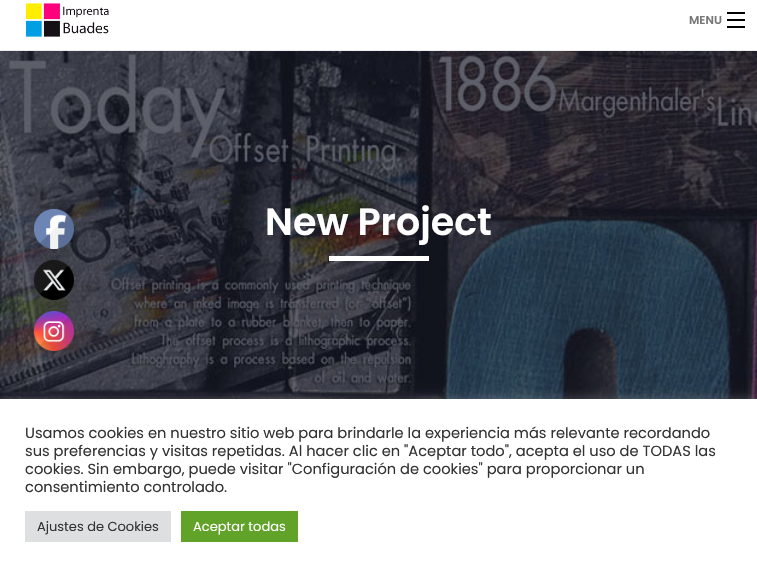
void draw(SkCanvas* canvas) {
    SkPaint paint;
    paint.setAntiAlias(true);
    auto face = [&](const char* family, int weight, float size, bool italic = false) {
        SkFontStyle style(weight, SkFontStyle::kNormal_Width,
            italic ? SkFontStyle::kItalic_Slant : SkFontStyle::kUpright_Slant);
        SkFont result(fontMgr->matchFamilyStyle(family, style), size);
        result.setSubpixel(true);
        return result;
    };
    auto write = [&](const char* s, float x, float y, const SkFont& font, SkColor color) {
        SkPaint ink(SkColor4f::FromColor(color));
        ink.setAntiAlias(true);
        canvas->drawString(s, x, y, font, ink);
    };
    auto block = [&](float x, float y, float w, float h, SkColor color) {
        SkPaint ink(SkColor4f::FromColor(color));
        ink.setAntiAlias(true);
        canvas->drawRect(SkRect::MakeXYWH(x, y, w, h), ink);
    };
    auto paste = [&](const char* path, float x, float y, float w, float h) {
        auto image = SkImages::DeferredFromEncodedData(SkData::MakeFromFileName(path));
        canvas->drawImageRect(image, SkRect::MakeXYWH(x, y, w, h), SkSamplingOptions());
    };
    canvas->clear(SK_ColorWHITE);
    paste("pic1.png", 26, 3, 83, 34);
    auto kFont1 = face("Poppins", 600, 11.5f);
    write("MENU", 689, 24, kFont1, SkColorSetRGB(119, 119, 119));
    block(727, 26, 18, 2, SK_ColorBLACK);
    block(727, 19, 18, 2, SK_ColorBLACK);
    block(727, 12, 18, 2, SK_ColorBLACK);
    paste("pic2.png", 0, 51, 757, 348);
    block(0, 50, 757, 1, SkColorSetRGB(235, 237, 237));
    auto kFont2 = face("Poppins", 600, 38);
    write("New Project", 265, 235, kFont2, SK_ColorWHITE);
    block(329, 256, 100, 5, SK_ColorWHITE);
    paste("pic3.png", 34, 209, 40, 40);
    paste("pic4.png", 34, 260, 40, 40);
    paste("pic5.png", 34, 311, 40, 40);
    paint.setColor(SkColorSetARGB(77, 172, 171, 171));
    paint.setMaskFilter(SkMaskFilter::MakeBlur(kNormal_SkBlurStyle, 5));
    canvas->drawRect(SkRect::MakeXYWH(0, 398, 757, 173), paint);
    paint.setMaskFilter(nullptr);
    block(0, 399, 757, 173, SK_ColorWHITE);
    auto kFont3 = face("Poppins", 400, 14.65f);
    write("Usamos cookies en nuestro sitio web para brindarle la experiencia más relevante recordando", 25, 438, kFont3, SkColorSetRGB(51, 51, 51));
    write("sus preferencias y visitas repetidas. Al hacer clic en \"Aceptar todo\", acepta el uso de TODAS las", 25, 456, kFont3, SkColorSetRGB(51, 51, 51));
    write("cookies. Sin embargo, puede visitar \"Configuración de cookies\" para proporcionar un", 25, 474, kFont3, SkColorSetRGB(51, 51, 51));
    write("consentimiento controlado.", 25, 492, kFont3, SkColorSetRGB(51, 51, 51));
    block(25, 511, 146, 31, SkColorSetRGB(222, 223, 224));
    auto kFont4 = face("Poppins", 400, 13);
    write("Ajustes de Cookies", 37, 531, kFont4, SkColorSetRGB(51, 51, 51));
    block(181, 511, 117, 31, SkColorSetRGB(97, 162, 41));
    write("Aceptar todas", 193, 531, kFont4, SK_ColorWHITE);
}
